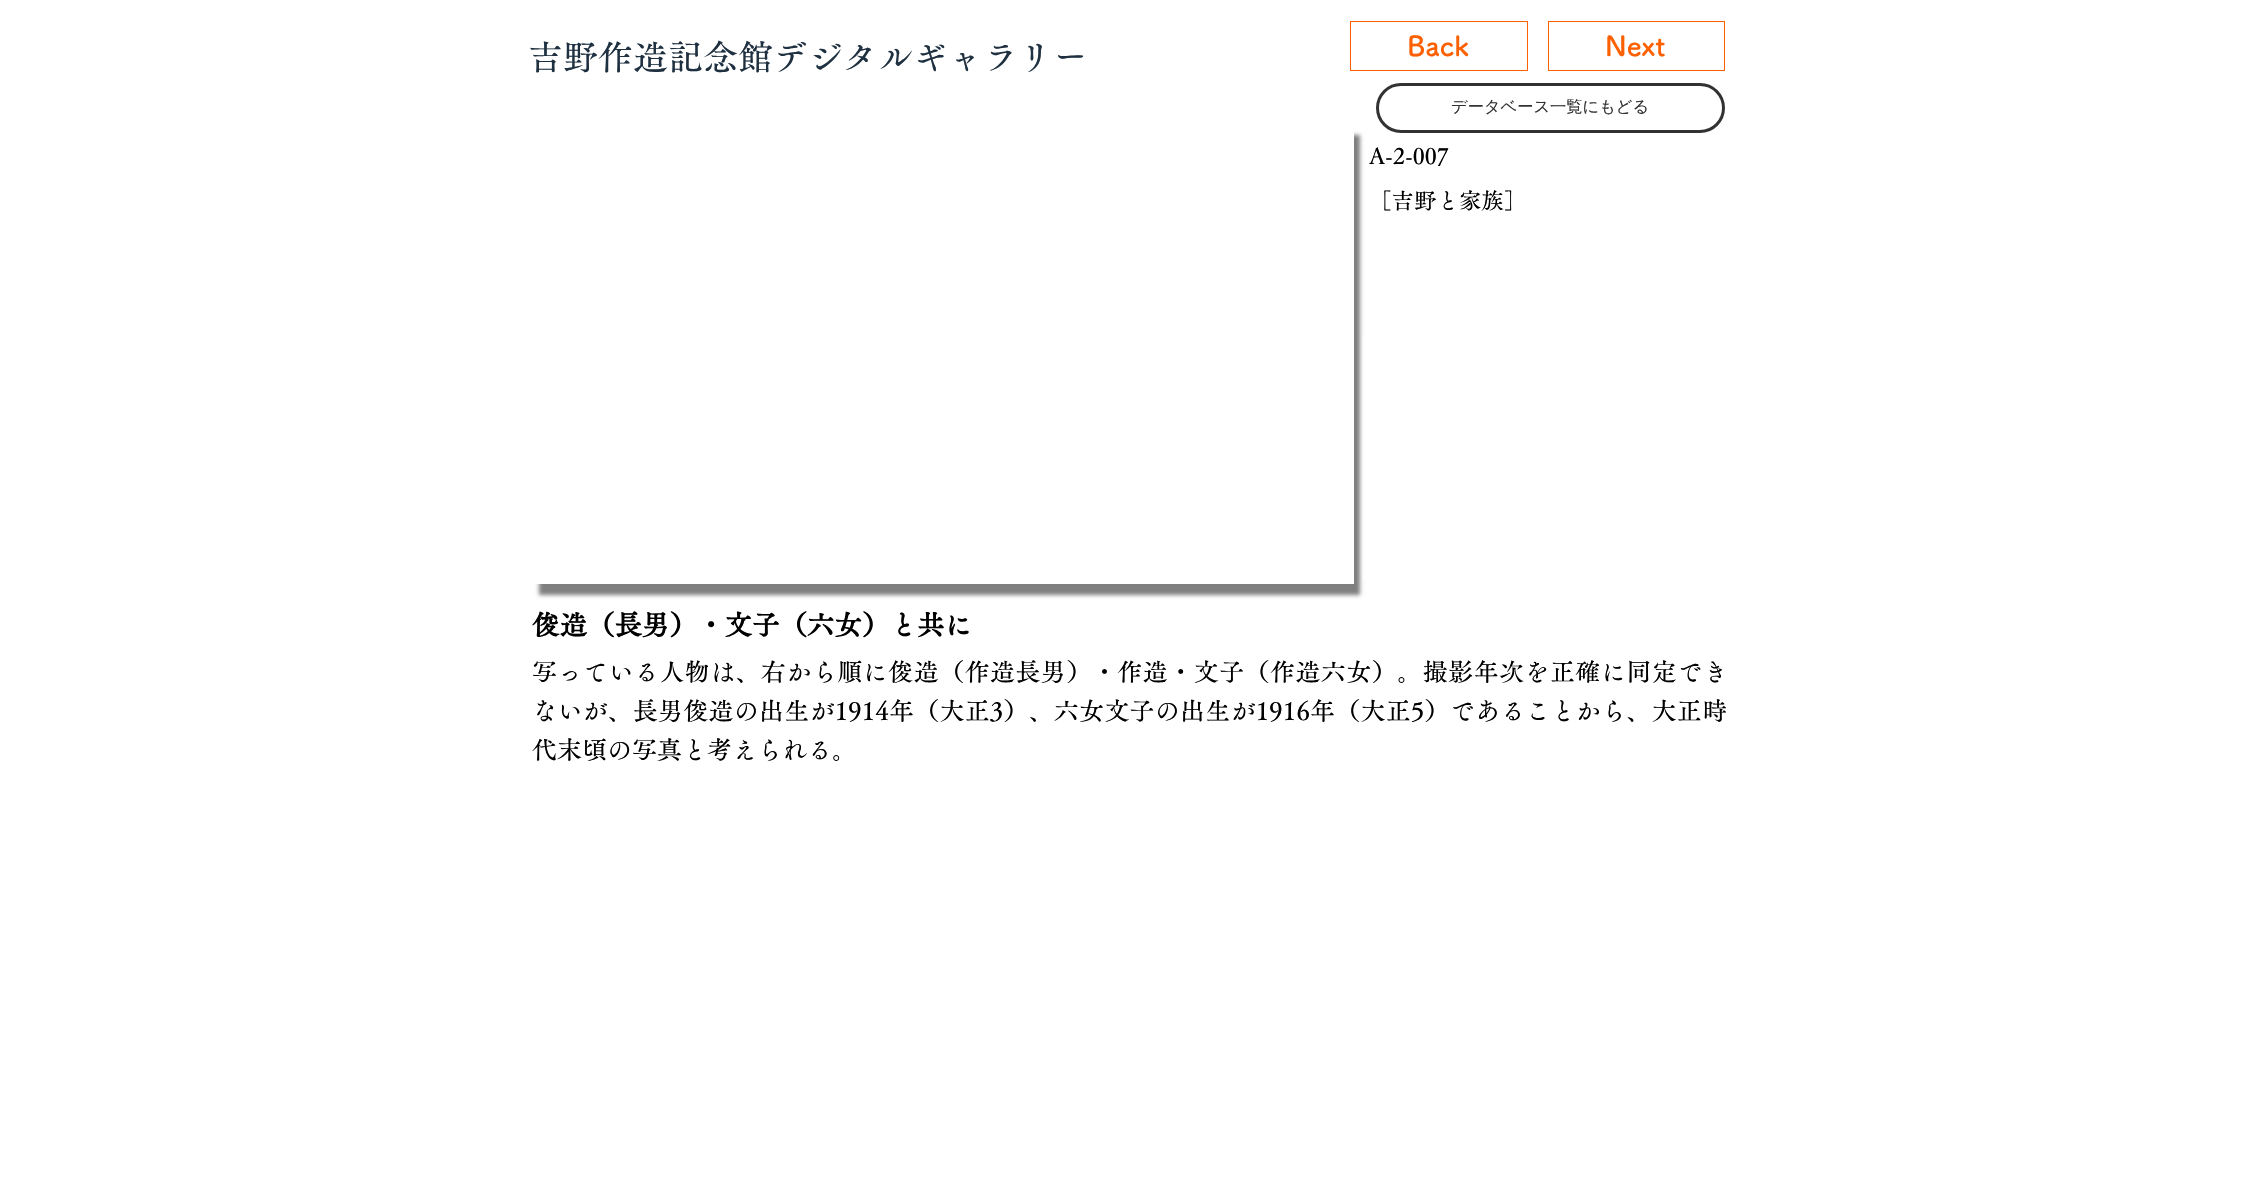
void draw(SkCanvas* canvas) {
    SkPaint paint;
    paint.setAntiAlias(true);
    auto face = [&](const char* family, int weight, float size, bool italic = false) {
        SkFontStyle style(weight, SkFontStyle::kNormal_Width,
            italic ? SkFontStyle::kItalic_Slant : SkFontStyle::kUpright_Slant);
        SkFont result(fontMgr->matchFamilyStyle(family, style), size);
        result.setSubpixel(true);
        return result;
    };
    auto write = [&](const char* s, float x, float y, const SkFont& font, SkColor color) {
        SkPaint ink(SkColor4f::FromColor(color));
        ink.setAntiAlias(true);
        canvas->drawString(s, x, y, font, ink);
    };
    auto writeSpaced = [&](const char* s, float x, float y, const SkFont& font, const SkPaint& ink, float letter, float word) {
        std::vector<SkGlyphID> glyphs(font.countText(s, strlen(s), SkTextEncoding::kUTF8));
        std::vector<float> xs(glyphs.size());
        font.textToGlyphs(s, strlen(s), SkTextEncoding::kUTF8, glyphs);
        font.getXPos(glyphs, xs, x);
        float extra = 0;
        for (size_t i = 0; i < glyphs.size(); i++) {
            xs[i] += extra;
            extra += letter + word * (glyphs[i] == font.unicharToGlyph(' '));
        }
        canvas->drawTextBlob(SkTextBlob::MakeFromPosHGlyphs(glyphs, xs, y, font), 0, 0, ink);
    };
    auto block = [&](float x, float y, float w, float h, SkColor color) {
        SkPaint ink(SkColor4f::FromColor(color));
        ink.setAntiAlias(true);
        canvas->drawRect(SkRect::MakeXYWH(x, y, w, h), ink);
    };
    canvas->clear(SK_ColorWHITE);
    auto kFont1 = face("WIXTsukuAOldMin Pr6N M", 500, 35);
    write("吉野作造記念館デジタルギャラリー", 528, 70, kFont1, SkColorSetRGB(31, 49, 65));
    paint.setStyle(SkPaint::kStroke_Style);
    paint.setStrokeWidth(1);
    paint.setColor(SkColorSetRGB(252, 96, 0));
    canvas->drawRect(SkRect::MakeXYWH(1350.5f, 21.5f, 177, 49), paint);
    auto kFont2 = face("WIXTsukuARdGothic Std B", 700, 27.5f);
    write("Back", 1407, 56, kFont2, SkColorSetRGB(252, 96, 0));
    canvas->drawRect(SkRect::MakeXYWH(1548.5f, 21.5f, 176, 49), paint);
    write("Next", 1605, 56, kFont2, SkColorSetRGB(252, 96, 0));
    paint.setStrokeWidth(3);
    paint.setColor(SkColorSetRGB(50, 50, 50));
    canvas->drawRoundRect(SkRect::MakeXYWH(1377.5f, 84.5f, 346, 47), 23.5f, 23.5f, paint);
    auto kFont3 = face("WenQuanYi Zen Hei", 500, 16.25f);
    write("データベース一覧にもどる", 1451, 112, kFont3, SkColorSetRGB(50, 50, 50));
    canvas->save();
    canvas->clipPath(SkPathBuilder(SkPathFillType::kEvenOdd).moveTo(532, 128).lineTo(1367, 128).lineTo(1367, 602).lineTo(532, 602).close().moveTo(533, 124).lineTo(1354, 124).lineTo(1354, 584).lineTo(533, 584).close().detach(), true);
    paint.setStyle(SkPaint::kFill_Style);
    paint.setColor(SkColorSetARGB(128, 0, 0, 0));
    paint.setMaskFilter(SkMaskFilter::MakeBlur(kNormal_SkBlurStyle, 2));
    canvas->drawRect(SkRect::MakeXYWH(539, 135, 821, 460), paint);
    paint.setMaskFilter(nullptr);
    canvas->restore();
    auto kFont4 = face("WIXTsukuAOldMin Pr6N M", 500, 22.5f);
    write("A-2-007", 1369, 164, kFont4, SK_ColorBLACK);
    write("［吉野と家族］", 1369, 209, kFont4, SK_ColorBLACK);
    block(1363, 336, 1, 245, SK_ColorWHITE);
    auto kFont5 = face("WIXTsukuAOldMin Pr6N M", 700, 27.5f);
    write("俊造（長男）・文子（六女）と共に", 532, 635, kFont5, SK_ColorBLACK);
    auto kFont6 = face("WIXTsukuAOldMin Pr6N M", 500, 25);
    paint.setColor(SK_ColorBLACK);
    writeSpaced("写っている人物は、右から順に俊造（作造長男）・作造・文子（作造六女）。撮影年次を正確に同定でき", 532, 681, kFont6, paint, 0.45f, 0);
    writeSpaced("ないが、長男俊造の出生が1914年（大正3）、六女文子の出生が1916年（大正5）であることから、大正時", 532, 720, kFont6, paint, 0.23f, 0);
    write("代末頃の写真と考えられる。", 532, 759, kFont6, SK_ColorBLACK);
}
